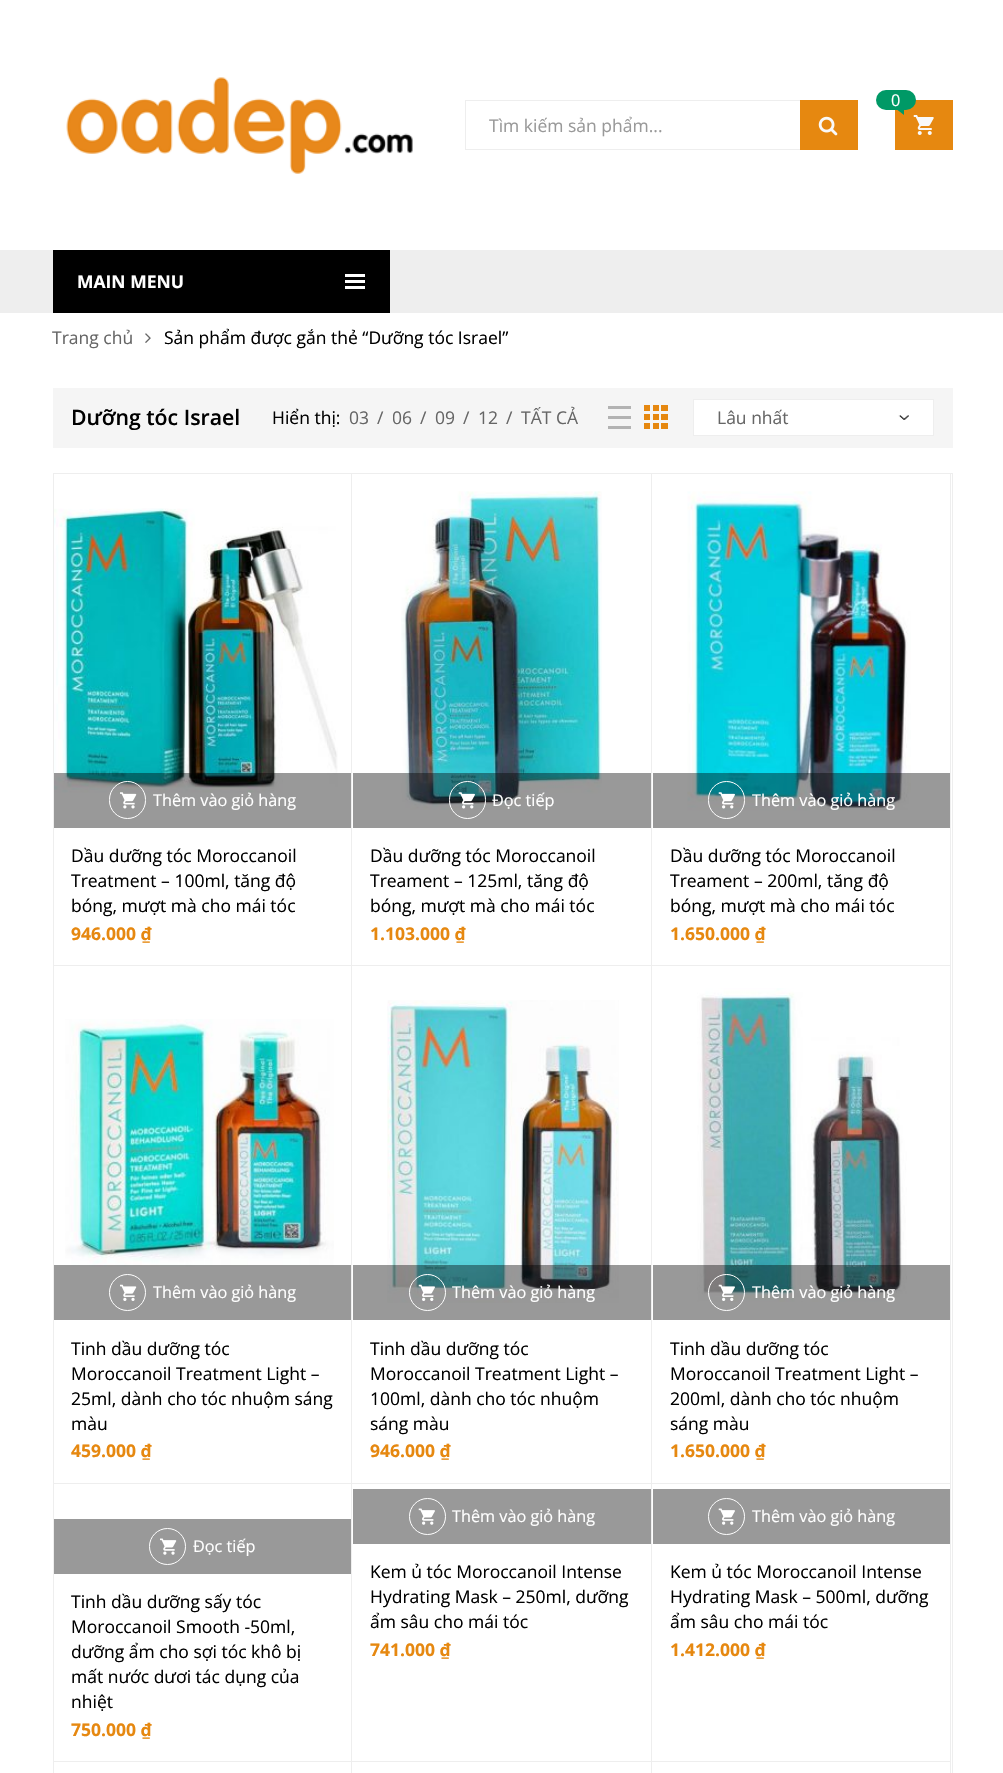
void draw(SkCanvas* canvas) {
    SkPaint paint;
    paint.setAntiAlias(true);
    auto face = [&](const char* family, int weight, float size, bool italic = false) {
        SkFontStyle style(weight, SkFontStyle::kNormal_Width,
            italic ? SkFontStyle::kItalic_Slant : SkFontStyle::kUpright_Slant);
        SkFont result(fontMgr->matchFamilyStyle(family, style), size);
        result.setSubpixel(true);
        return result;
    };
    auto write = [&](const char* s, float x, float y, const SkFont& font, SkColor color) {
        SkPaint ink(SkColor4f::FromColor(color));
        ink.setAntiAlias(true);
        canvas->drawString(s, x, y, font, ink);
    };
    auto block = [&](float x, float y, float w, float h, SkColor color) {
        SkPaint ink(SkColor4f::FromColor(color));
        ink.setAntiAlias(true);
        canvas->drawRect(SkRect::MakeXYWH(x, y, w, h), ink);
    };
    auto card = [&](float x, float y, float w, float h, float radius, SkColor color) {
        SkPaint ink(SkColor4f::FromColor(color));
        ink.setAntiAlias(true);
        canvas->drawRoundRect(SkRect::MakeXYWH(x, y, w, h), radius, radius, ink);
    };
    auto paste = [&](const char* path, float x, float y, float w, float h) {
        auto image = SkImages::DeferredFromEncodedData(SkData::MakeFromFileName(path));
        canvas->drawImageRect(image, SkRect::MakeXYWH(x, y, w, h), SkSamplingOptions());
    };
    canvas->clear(SK_ColorWHITE);
    paste("pic1.png", 66, 77, 347, 97);
    block(895, 100, 58, 50, SkColorSetRGB(230, 136, 16));
    card(876, 90, 40, 20, 10, SkColorSetRGB(0, 153, 102));
    auto kFont1 = face("Open Sans", 400, 16.25f);
    write("0", 891, 106, kFont1, SK_ColorWHITE);
    paint.setColor(SkColorSetRGB(0, 153, 102));
    canvas->drawPath(SkPathBuilder().moveTo(897.5f, 110).lineTo(904, 110).lineTo(904, 115).close().detach(), paint);
    paste("pic2.png", 913, 115, 21, 20);
    paint.setStyle(SkPaint::kStroke_Style);
    paint.setStrokeWidth(1);
    paint.setColor(SkColorSetRGB(238, 238, 238));
    canvas->drawRect(SkRect::MakeXYWH(465.5f, 100.5f, 392, 49), paint);
    auto kFont2 = face("Open Sans", 400, 17.5f);
    write("Tìm kiếm sản phẩm...", 489, 132, kFont2, SkColorSetRGB(153, 153, 153));
    block(800, 100, 58, 50, SkColorSetRGB(230, 136, 16));
    paste("pic3.png", 818, 116, 20, 20);
    block(0, 250, 1003, 63, SkColorSetRGB(238, 238, 238));
    block(53, 250, 337, 63, SK_ColorBLACK);
    auto kFont3 = face("Open Sans", 700, 17.5f);
    write("MAIN MENU", 77, 288, kFont3, SK_ColorWHITE);
    block(345, 274, 20, 3, SK_ColorWHITE);
    block(345, 280, 20, 3, SK_ColorWHITE);
    block(345, 286, 20, 3, SK_ColorWHITE);
    write("Trang chủ", 52, 344, kFont2, SkColorSetRGB(102, 102, 102));
    paste("pic4.png", 145, 333, 6, 10);
    write("Sản phẩm được gắn thẻ “Dưỡng tóc Israel”", 164, 344, kFont2, SK_ColorBLACK);
    block(53, 388, 900, 60, SkColorSetRGB(245, 245, 245));
    auto kFont4 = face("Open Sans", 600, 21.25f);
    write("Dưỡng tóc Israel", 71, 425, kFont4, SK_ColorBLACK);
    write("Hiển thị:", 272, 424, kFont2, SK_ColorBLACK);
    write("03", 349, 424, kFont2, SkColorSetRGB(102, 102, 102));
    write("/", 377, 424, kFont2, SkColorSetRGB(102, 102, 102));
    canvas->save();
    canvas->clipRect(SkRect::MakeXYWH(393, 403, 20, 30));
    write("06", 392, 424, kFont2, SkColorSetRGB(102, 102, 102));
    canvas->restore();
    write("/", 420, 424, kFont2, SkColorSetRGB(102, 102, 102));
    write("09", 435, 424, kFont2, SkColorSetRGB(102, 102, 102));
    write("/", 463, 424, kFont2, SkColorSetRGB(102, 102, 102));
    write("12", 478, 424, kFont2, SkColorSetRGB(102, 102, 102));
    write("/", 506, 424, kFont2, SkColorSetRGB(102, 102, 102));
    write("TẤT CẢ", 521, 424, kFont2, SkColorSetRGB(102, 102, 102));
    block(608, 406, 23, 3, SkColorSetRGB(179, 179, 179));
    block(608, 416, 23, 3, SkColorSetRGB(179, 179, 179));
    block(608, 426, 23, 3, SkColorSetRGB(179, 179, 179));
    block(644, 405, 6, 6, SkColorSetRGB(230, 136, 16));
    block(653, 405, 6, 6, SkColorSetRGB(230, 136, 16));
    block(661, 405, 7, 6, SkColorSetRGB(230, 136, 16));
    block(644, 414, 6, 6, SkColorSetRGB(230, 136, 16));
    block(653, 414, 6, 6, SkColorSetRGB(230, 136, 16));
    block(661, 414, 7, 6, SkColorSetRGB(230, 136, 16));
    block(644, 423, 6, 6, SkColorSetRGB(230, 136, 16));
    block(653, 423, 6, 6, SkColorSetRGB(230, 136, 16));
    block(661, 423, 7, 6, SkColorSetRGB(230, 136, 16));
    block(694, 400, 239, 35, SK_ColorWHITE);
    paste("pic5.png", 898, 415, 11, 5);
    canvas->drawRect(SkRect::MakeXYWH(693.5f, 399.5f, 240, 36), paint);
    write("Lâu nhất", 717, 424, kFont2, SkColorSetRGB(102, 102, 102));
    canvas->drawRect(SkRect::MakeXYWH(53.5f, 473.5f, 899, 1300), paint);
    block(351, 474, 1, 1299, SkColorSetRGB(238, 238, 238));
    block(54, 965, 299, 1, SkColorSetRGB(238, 238, 238));
    paste("pic6.png", 54, 508, 284, 285);
    block(54, 773, 297, 55, SkColorSetARGB(102, 0, 0, 0));
    paint.setColor(SK_ColorWHITE);
    canvas->drawRoundRect(SkRect::MakeXYWH(109.5f, 781.5f, 36, 37), 18, 18, paint);
    paste("pic7.png", 120, 792, 17, 17);
    write("Thêm vào giỏ hàng", 153, 806, kFont1, SK_ColorWHITE);
    write("Dầu dưỡng tóc Moroccanoil", 71, 862, kFont2, SK_ColorBLACK);
    write("Treatment – 100ml, tăng độ", 71, 887, kFont2, SK_ColorBLACK);
    write("bóng, mượt mà cho mái tóc", 71, 912, kFont2, SK_ColorBLACK);
    write("946.000 ₫", 71, 940, kFont3, SkColorSetRGB(230, 136, 16));
    block(651, 474, 1, 1299, SkColorSetRGB(238, 238, 238));
    block(353, 965, 300, 1, SkColorSetRGB(238, 238, 238));
    paste("pic8.png", 401, 491, 201, 319);
    block(353, 773, 298, 55, SkColorSetARGB(102, 0, 0, 0));
    canvas->drawRoundRect(SkRect::MakeXYWH(449.5f, 781.5f, 36, 37), 18, 18, paint);
    paste("pic9.png", 458, 792, 17, 17);
    write("Đọc tiếp", 492, 806, kFont1, SK_ColorWHITE);
    write("Dầu dưỡng tóc Moroccanoil", 370, 862, kFont2, SK_ColorBLACK);
    write("Treament – 125ml, tăng độ", 370, 887, kFont2, SK_ColorBLACK);
    write("bóng, mượt mà cho mái tóc", 370, 912, kFont2, SK_ColorBLACK);
    write("1.103.000 ₫", 370, 940, kFont3, SkColorSetRGB(230, 136, 16));
    block(950, 474, 1, 1299, SkColorSetRGB(238, 238, 238));
    block(653, 965, 298, 1, SkColorSetRGB(238, 238, 238));
    paste("pic10.png", 687, 491, 224, 320);
    block(653, 773, 297, 55, SkColorSetARGB(102, 0, 0, 0));
    canvas->drawRoundRect(SkRect::MakeXYWH(708.5f, 781.5f, 36, 37), 18, 18, paint);
    paste("pic11.png", 718, 792, 17, 17);
    write("Thêm vào giỏ hàng", 752, 806, kFont1, SK_ColorWHITE);
    write("Dầu dưỡng tóc Moroccanoil", 670, 862, kFont2, SK_ColorBLACK);
    write("Treament – 200ml, tăng độ", 670, 887, kFont2, SK_ColorBLACK);
    write("bóng, mượt mà cho mái tóc", 670, 912, kFont2, SK_ColorBLACK);
    write("1.650.000 ₫", 670, 940, kFont3, SkColorSetRGB(230, 136, 16));
    block(54, 1483, 897, 1, SkColorSetRGB(238, 238, 238));
    paste("pic12.png", 65, 1019, 269, 248);
    block(54, 1265, 297, 55, SkColorSetARGB(102, 0, 0, 0));
    canvas->drawCircle(127.5f, 1292.5f, 18, paint);
    paste("pic13.png", 120, 1284, 17, 17);
    write("Thêm vào giỏ hàng", 153, 1298, kFont1, SK_ColorWHITE);
    write("Tinh dầu dưỡng tóc", 71, 1355, kFont2, SK_ColorBLACK);
    write("Moroccanoil Treatment Light –", 71, 1380, kFont2, SK_ColorBLACK);
    write("25ml, dành cho tóc nhuộm sáng", 71, 1405, kFont2, SK_ColorBLACK);
    write("màu", 71, 1430, kFont2, SK_ColorBLACK);
    write("459.000 ₫", 71, 1457, kFont3, SkColorSetRGB(230, 136, 16));
    paste("pic14.png", 387, 1000, 232, 303);
    block(353, 1265, 298, 55, SkColorSetARGB(102, 0, 0, 0));
    canvas->drawCircle(427.5f, 1292.5f, 18, paint);
    paste("pic15.png", 418, 1284, 17, 17);
    write("Thêm vào giỏ hàng", 452, 1298, kFont1, SK_ColorWHITE);
    write("Tinh dầu dưỡng tóc", 370, 1355, kFont2, SK_ColorBLACK);
    write("Moroccanoil Treatment Light –", 370, 1380, kFont2, SK_ColorBLACK);
    write("100ml, dành cho tóc nhuộm", 370, 1405, kFont2, SK_ColorBLACK);
    write("sáng màu", 370, 1430, kFont2, SK_ColorBLACK);
    write("946.000 ₫", 370, 1457, kFont3, SkColorSetRGB(230, 136, 16));
    paste("pic16.png", 697, 988, 210, 314);
    block(653, 1265, 297, 55, SkColorSetARGB(102, 0, 0, 0));
    canvas->drawCircle(726.5f, 1292.5f, 18, paint);
    paste("pic17.png", 718, 1284, 17, 17);
    write("Thêm vào giỏ hàng", 752, 1298, kFont1, SK_ColorWHITE);
    write("Tinh dầu dưỡng tóc", 670, 1355, kFont2, SK_ColorBLACK);
    write("Moroccanoil Treatment Light –", 670, 1380, kFont2, SK_ColorBLACK);
    write("200ml, dành cho tóc nhuộm", 670, 1405, kFont2, SK_ColorBLACK);
    write("sáng màu", 670, 1430, kFont2, SK_ColorBLACK);
    write("1.650.000 ₫", 670, 1457, kFont3, SkColorSetRGB(230, 136, 16));
    block(54, 1761, 897, 1, SkColorSetRGB(238, 238, 238));
    block(54, 1519, 297, 55, SkColorSetRGB(153, 153, 153));
    canvas->drawCircle(167.5f, 1546.5f, 18, paint);
    paste("pic18.png", 160, 1538, 17, 17);
    write("Đọc tiếp", 193, 1552, kFont1, SK_ColorWHITE);
    write("Tinh dầu dưỡng sấy tóc", 71, 1608, kFont2, SK_ColorBLACK);
    write("Moroccanoil Smooth -50ml,", 71, 1633, kFont2, SK_ColorBLACK);
    write("dưỡng ẩm cho sợi tóc khô bị", 71, 1658, kFont2, SK_ColorBLACK);
    write("mất nước dươi tác dụng của", 71, 1683, kFont2, SK_ColorBLACK);
    write("nhiệt", 71, 1708, kFont2, SK_ColorBLACK);
    write("750.000 ₫", 71, 1736, kFont3, SkColorSetRGB(230, 136, 16));
    block(353, 1489, 298, 55, SkColorSetRGB(153, 153, 153));
    canvas->drawCircle(427.5f, 1516.5f, 18, paint);
    paste("pic19.png", 418, 1508, 17, 17);
    write("Thêm vào giỏ hàng", 452, 1522, kFont1, SK_ColorWHITE);
    write("Kem ủ tóc Moroccanoil Intense", 370, 1578, kFont2, SK_ColorBLACK);
    write("Hydrating Mask – 250ml, dưỡng", 370, 1603, kFont2, SK_ColorBLACK);
    write("ẩm sâu cho mái tóc", 370, 1628, kFont2, SK_ColorBLACK);
    write("741.000 ₫", 370, 1656, kFont3, SkColorSetRGB(230, 136, 16));
    block(653, 1489, 297, 55, SkColorSetRGB(153, 153, 153));
    canvas->drawCircle(726.5f, 1516.5f, 18, paint);
    paste("pic19.png", 718, 1508, 17, 17);
    write("Thêm vào giỏ hàng", 752, 1522, kFont1, SK_ColorWHITE);
    write("Kem ủ tóc Moroccanoil Intense", 670, 1578, kFont2, SK_ColorBLACK);
    write("Hydrating Mask – 500ml, dưỡng", 670, 1603, kFont2, SK_ColorBLACK);
    write("ẩm sâu cho mái tóc", 670, 1628, kFont2, SK_ColorBLACK);
    write("1.412.000 ₫", 670, 1656, kFont3, SkColorSetRGB(230, 136, 16));
}
